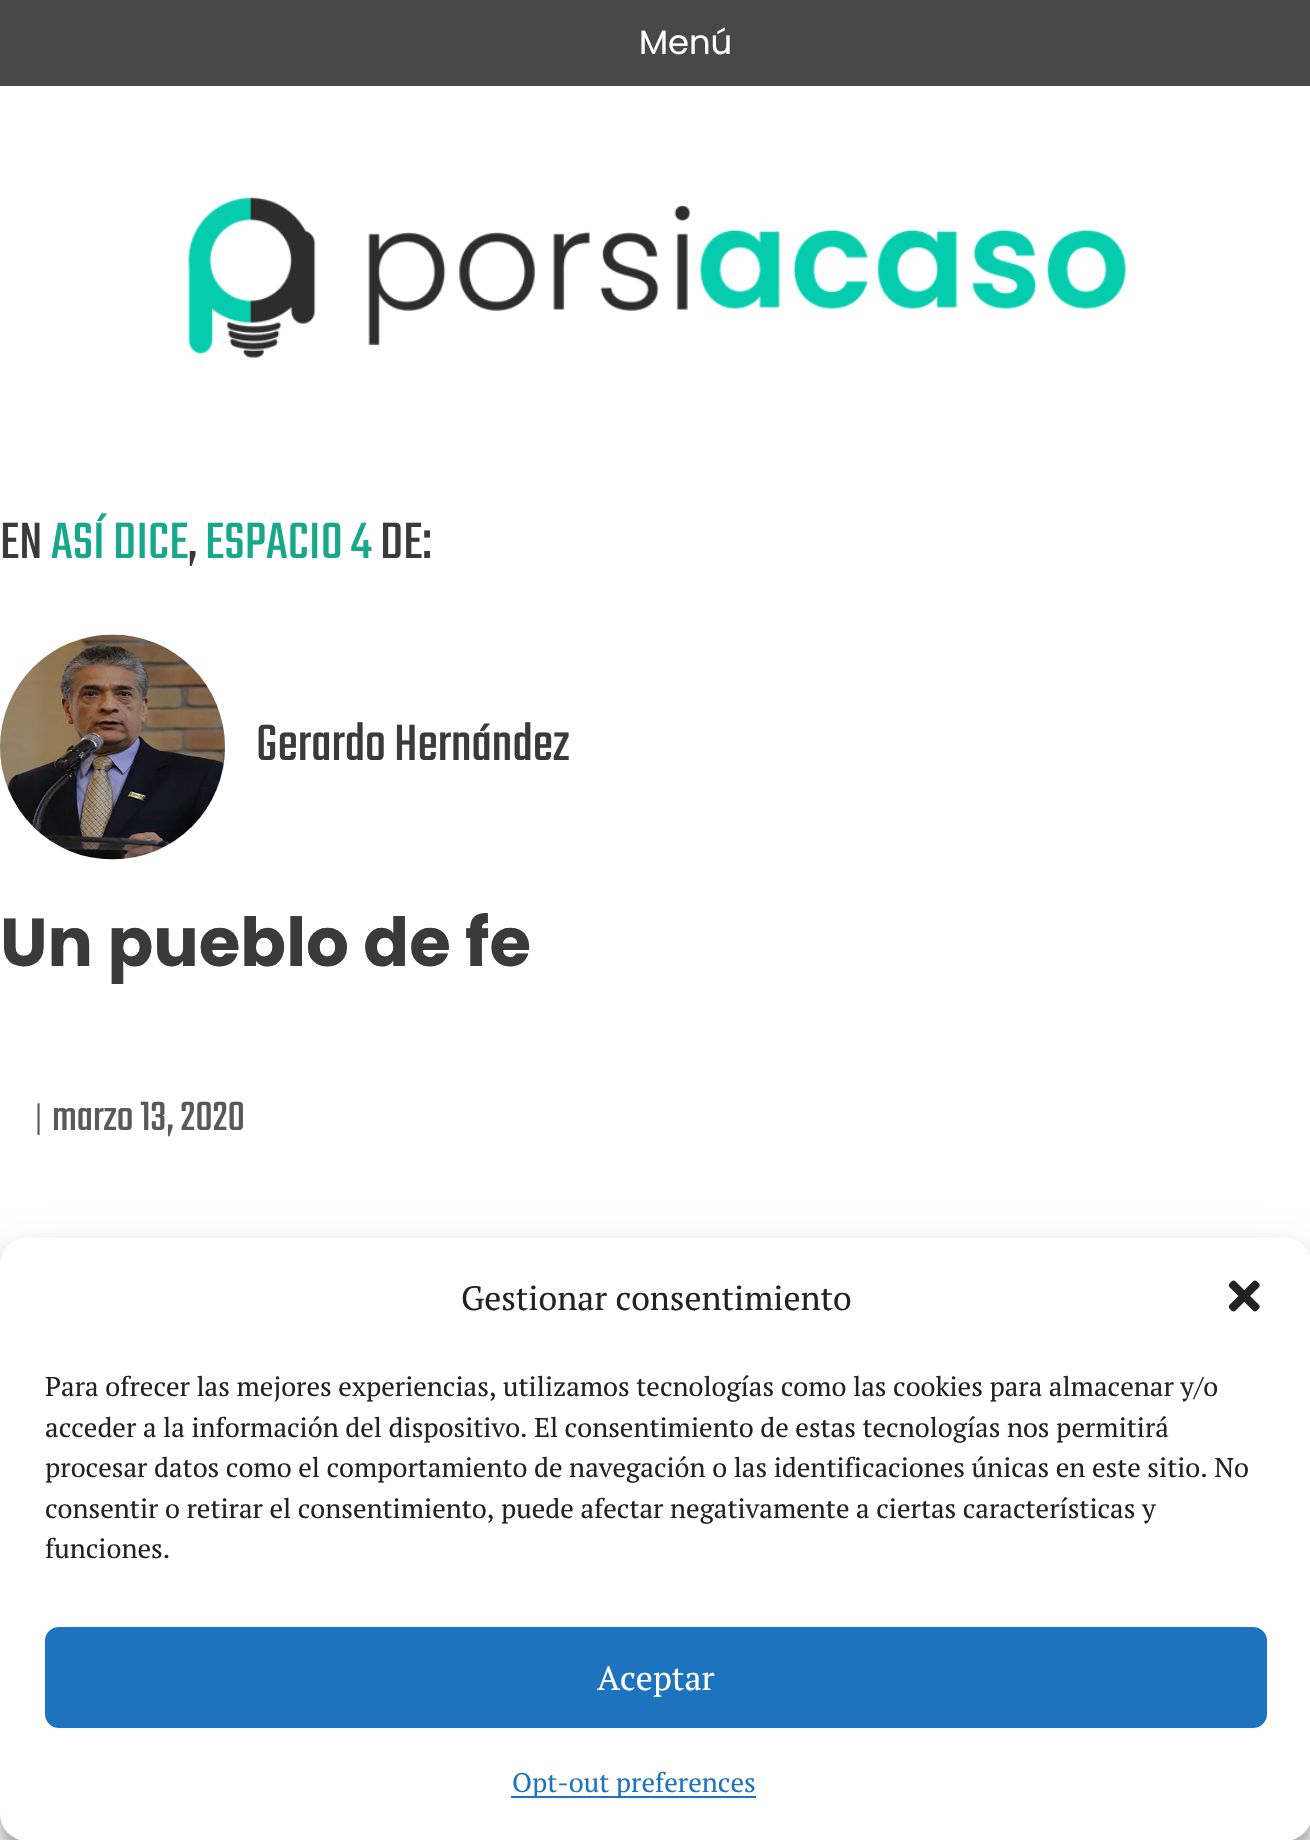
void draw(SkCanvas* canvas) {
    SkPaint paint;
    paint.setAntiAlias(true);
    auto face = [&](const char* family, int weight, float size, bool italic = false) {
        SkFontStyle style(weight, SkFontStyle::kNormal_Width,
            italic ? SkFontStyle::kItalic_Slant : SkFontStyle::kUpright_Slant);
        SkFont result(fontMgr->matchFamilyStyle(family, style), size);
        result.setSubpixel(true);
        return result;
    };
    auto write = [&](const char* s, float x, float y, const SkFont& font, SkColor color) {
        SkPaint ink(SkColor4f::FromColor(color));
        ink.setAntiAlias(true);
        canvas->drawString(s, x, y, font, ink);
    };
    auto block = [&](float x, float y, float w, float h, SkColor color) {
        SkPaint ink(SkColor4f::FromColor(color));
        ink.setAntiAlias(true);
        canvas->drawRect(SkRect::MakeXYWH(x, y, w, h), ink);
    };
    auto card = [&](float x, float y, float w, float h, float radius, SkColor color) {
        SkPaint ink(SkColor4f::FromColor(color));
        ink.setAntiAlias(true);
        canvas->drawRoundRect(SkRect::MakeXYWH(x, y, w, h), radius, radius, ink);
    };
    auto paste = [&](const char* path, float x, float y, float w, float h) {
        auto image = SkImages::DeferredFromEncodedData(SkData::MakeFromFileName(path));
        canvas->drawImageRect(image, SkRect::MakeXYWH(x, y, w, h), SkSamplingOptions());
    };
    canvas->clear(SK_ColorWHITE);
    block(0, 0, 1310, 86, SkColorSetRGB(72, 72, 72));
    auto kFont1 = face("Poppins", 400, 33.75f);
    write("Menú", 639, 54, kFont1, SK_ColorWHITE);
    paste("pic1.png", 188, 197, 939, 161);
    auto kFont2 = face("Teko", 400, 56.25f);
    write("EN", 0, 558, kFont2, SkColorSetRGB(58, 58, 58));
    write("ASÍ DICE", 51, 558, kFont2, SkColorSetRGB(23, 167, 139));
    write(",", 188, 558, kFont2, SkColorSetRGB(58, 58, 58));
    write("ESPACIO 4", 205, 558, kFont2, SkColorSetRGB(23, 167, 139));
    write("DE:", 380, 558, kFont2, SkColorSetRGB(58, 58, 58));
    paste("pic2.png", 0, 634, 225, 226);
    write("Gerardo Hernández", 256, 760, kFont2, SkColorSetRGB(58, 58, 58));
    auto kFont3 = face("Poppins", 700, 67.5f);
    write("Un pueblo de fe", 0, 966, kFont3, SkColorSetRGB(58, 58, 58));
    auto kFont4 = face("PT Serif", 400, 38);
    write("|", 34, 1130, kFont4, SkColorSetRGB(89, 89, 89));
    auto kFont5 = face("Teko", 400, 45);
    write("marzo 13, 2020", 52, 1130, kFont5, SkColorSetRGB(89, 89, 89));
    paint.setColor(SkColorSetARGB(59, 0, 0, 0));
    paint.setMaskFilter(SkMaskFilter::MakeBlur(kNormal_SkBlurStyle, 7));
    canvas->drawRoundRect(SkRect::MakeXYWH(0, 1251, 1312, 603), 27, 27, paint);
    paint.setMaskFilter(nullptr);
    paint.setColor(SkColorSetARGB(48, 0, 0, 0));
    paint.setMaskFilter(SkMaskFilter::MakeBlur(kNormal_SkBlurStyle, 22.5f));
    canvas->drawRoundRect(SkRect::MakeXYWH(0, 1260, 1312, 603), 27, 27, paint);
    paint.setMaskFilter(nullptr);
    card(0, 1238, 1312, 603, 27, SK_ColorWHITE);
    auto kFont6 = face("PT Serif", 400, 33.75f);
    write("Gestionar consentimiento", 461, 1310, kFont6, SkColorSetRGB(34, 34, 34));
    paste("pic3.png", 1228, 1280, 32, 32);
    auto kFont7 = face("PT Serif", 400, 27);
    write("Para ofrecer las mejores experiencias, utilizamos tecnologías como las cookies para almacenar y/o", 45, 1396, kFont7, SkColorSetRGB(34, 34, 34));
    write("acceder a la información del dispositivo. El consentimiento de estas tecnologías nos permitirá", 45, 1437, kFont7, SkColorSetRGB(34, 34, 34));
    write("procesar datos como el comportamiento de navegación o las identificaciones únicas en este sitio. No", 45, 1477, kFont7, SkColorSetRGB(34, 34, 34));
    write("consentir o retirar el consentimiento, puede afectar negativamente a ciertas características y", 45, 1518, kFont7, SkColorSetRGB(34, 34, 34));
    write("funciones.", 45, 1558, kFont7, SkColorSetRGB(34, 34, 34));
    paint.setColor(SkColorSetRGB(30, 115, 190));
    canvas->drawRoundRect(SkRect::MakeXYWH(46, 1628, 1220, 99), 13, 13, paint);
    paint.setStyle(SkPaint::kStroke_Style);
    paint.setStrokeWidth(2);
    canvas->drawRoundRect(SkRect::MakeXYWH(46, 1628, 1220, 99), 13, 13, paint);
    write("Aceptar", 597, 1690, kFont6, SK_ColorWHITE);
    block(511, 1796, 245, 2, SkColorSetRGB(30, 115, 190));
    write("Opt-out preferences", 512, 1792, kFont7, SkColorSetRGB(30, 115, 190));
}
